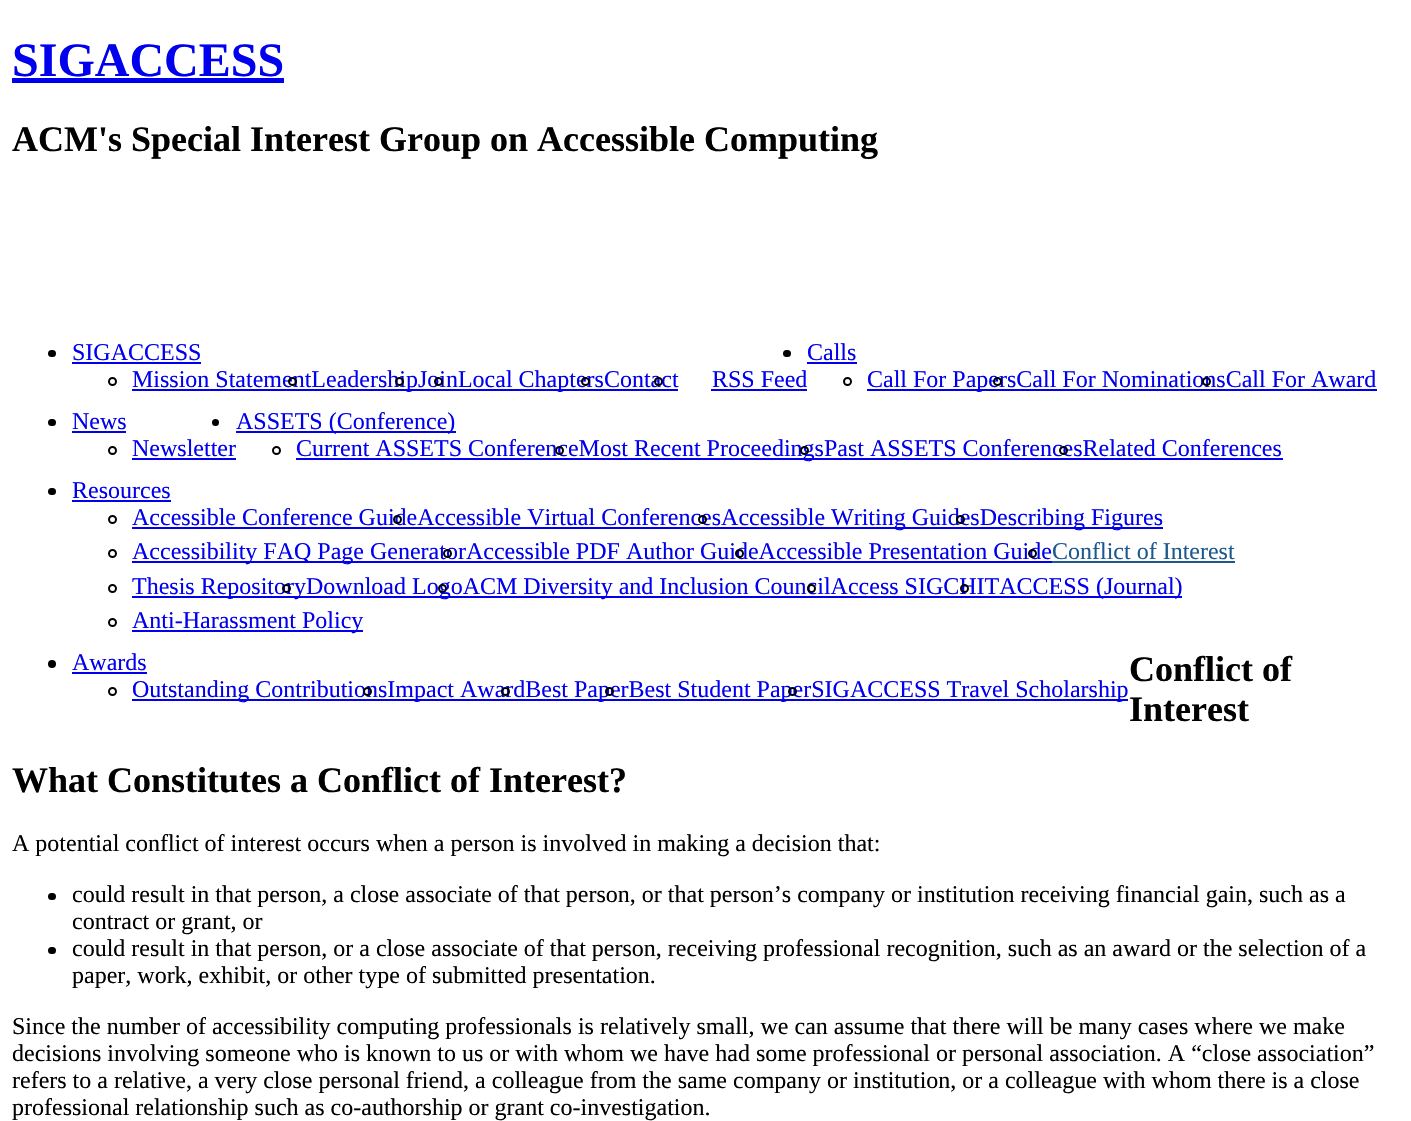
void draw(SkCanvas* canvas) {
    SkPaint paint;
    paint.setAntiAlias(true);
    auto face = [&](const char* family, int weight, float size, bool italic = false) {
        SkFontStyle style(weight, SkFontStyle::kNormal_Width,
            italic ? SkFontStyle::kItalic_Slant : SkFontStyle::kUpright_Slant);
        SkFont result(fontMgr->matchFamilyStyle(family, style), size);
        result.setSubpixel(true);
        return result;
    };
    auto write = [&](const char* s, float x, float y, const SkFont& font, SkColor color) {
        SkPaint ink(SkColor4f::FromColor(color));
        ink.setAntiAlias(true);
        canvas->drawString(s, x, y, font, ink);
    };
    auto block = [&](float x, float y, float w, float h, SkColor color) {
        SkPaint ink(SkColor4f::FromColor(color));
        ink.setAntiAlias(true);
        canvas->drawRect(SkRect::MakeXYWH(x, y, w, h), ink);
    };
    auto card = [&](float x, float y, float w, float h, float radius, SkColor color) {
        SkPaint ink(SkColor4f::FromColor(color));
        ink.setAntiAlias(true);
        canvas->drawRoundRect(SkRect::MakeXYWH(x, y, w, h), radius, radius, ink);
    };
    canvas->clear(SK_ColorWHITE);
    auto kFont1 = face("Liberation Serif", 700, 48);
    write("SIGACCESS", 12, 76, kFont1, SkColorSetRGB(0, 0, 238));
    block(12, 78, 272, 5, SkColorSetRGB(0, 0, 238));
    auto kFont2 = face("Liberation Serif", 700, 36);
    write("ACM's Special Interest Group on Accessible Computing", 12, 151, kFont2, SK_ColorBLACK);
    card(48, 350, 8, 7, 3.5f, SK_ColorBLACK);
    auto kFont3 = face("Liberation Serif", 400, 24);
    write("SIGACCESS", 72, 360, kFont3, SkColorSetRGB(0, 0, 238));
    block(72, 362, 129, 2, SkColorSetRGB(0, 0, 238));
    paint.setStyle(SkPaint::kStroke_Style);
    paint.setStrokeWidth(2);
    paint.setColor(SK_ColorBLACK);
    canvas->drawCircle(112.5f, 381.5f, 3.5f, paint);
    block(132, 389, 546, 2, SkColorSetRGB(0, 0, 238));
    write("Mission StatementLeadershipJoinLocal ChaptersContact", 132, 387, kFont3, SkColorSetRGB(0, 0, 238));
    canvas->drawCircle(658.5f, 381.5f, 3.5f, paint);
    write("RSS Feed", 712, 387, kFont3, SkColorSetRGB(0, 0, 238));
    block(711, 389, 96, 2, SkColorSetRGB(0, 0, 238));
    canvas->drawCircle(292.5f, 381.5f, 3.5f, paint);
    canvas->drawCircle(399.5f, 381.5f, 3.5f, paint);
    canvas->drawCircle(438.5f, 381.5f, 3.5f, paint);
    canvas->drawCircle(585.5f, 381.5f, 3.5f, paint);
    card(783, 350, 8, 7, 3.5f, SK_ColorBLACK);
    write("Calls", 807, 360, kFont3, SkColorSetRGB(0, 0, 238));
    block(807, 362, 50, 2, SkColorSetRGB(0, 0, 238));
    canvas->drawCircle(847.5f, 381.5f, 3.5f, paint);
    block(867, 389, 510, 2, SkColorSetRGB(0, 0, 238));
    write("Call For PapersCall For NominationsCall For Award", 867, 387, kFont3, SkColorSetRGB(0, 0, 238));
    canvas->drawCircle(997.5f, 381.5f, 3.5f, paint);
    canvas->drawCircle(1206.5f, 381.5f, 3.5f, paint);
    card(48, 419, 8, 7, 3.5f, SK_ColorBLACK);
    write("News", 72, 429, kFont3, SkColorSetRGB(0, 0, 238));
    block(72, 431, 54, 2, SkColorSetRGB(0, 0, 238));
    canvas->drawCircle(112.5f, 450.5f, 3.5f, paint);
    write("Newsletter", 132, 456, kFont3, SkColorSetRGB(0, 0, 238));
    block(132, 458, 104, 2, SkColorSetRGB(0, 0, 238));
    paint.setStyle(SkPaint::kFill_Style);
    canvas->drawCircle(215.5f, 422.5f, 3.5f, paint);
    block(236, 431, 220, 2, SkColorSetRGB(0, 0, 238));
    write("ASSETS (Conference)", 236, 429, kFont3, SkColorSetRGB(0, 0, 238));
    paint.setStyle(SkPaint::kStroke_Style);
    canvas->drawCircle(276.5f, 450.5f, 3.5f, paint);
    block(296, 458, 987, 2, SkColorSetRGB(0, 0, 238));
    write("Current ASSETS ConferenceMost Recent ProceedingsPast ASSETS ConferencesRelated Conferences", 296, 456, kFont3, SkColorSetRGB(0, 0, 238));
    canvas->drawCircle(559.5f, 450.5f, 3.5f, paint);
    canvas->drawCircle(804.5f, 450.5f, 3.5f, paint);
    canvas->drawCircle(1063.5f, 450.5f, 3.5f, paint);
    card(48, 488, 8, 7, 3.5f, SK_ColorBLACK);
    write("Resources", 72, 498, kFont3, SkColorSetRGB(0, 0, 238));
    block(72, 500, 99, 2, SkColorSetRGB(0, 0, 238));
    canvas->drawCircle(112.5f, 519.5f, 3.5f, paint);
    block(132, 527, 1031, 2, SkColorSetRGB(0, 0, 238));
    write("Accessible Conference GuideAccessible Virtual ConferencesAccessible Writing GuidesDescribing Figures", 132, 525, kFont3, SkColorSetRGB(0, 0, 238));
    canvas->drawCircle(397.5f, 519.5f, 3.5f, paint);
    canvas->drawCircle(702.5f, 519.5f, 3.5f, paint);
    canvas->drawCircle(960.5f, 519.5f, 3.5f, paint);
    canvas->drawCircle(112.5f, 553.5f, 3.5f, paint);
    block(132, 561, 920, 2, SkColorSetRGB(0, 0, 238));
    write("Accessibility FAQ Page GeneratorAccessible PDF Author GuideAccessible Presentation Guide", 132, 559, kFont3, SkColorSetRGB(0, 0, 238));
    canvas->drawCircle(1032.5f, 553.5f, 3.5f, paint);
    write("Conflict of Interest", 1052, 559, kFont3, SkColorSetRGB(30, 89, 142));
    block(1052, 561, 183, 2, SkColorSetRGB(30, 89, 142));
    canvas->drawCircle(447.5f, 553.5f, 3.5f, paint);
    canvas->drawCircle(739.5f, 553.5f, 3.5f, paint);
    canvas->drawCircle(112.5f, 588.5f, 3.5f, paint);
    block(132, 596, 1050, 2, SkColorSetRGB(0, 0, 238));
    write("Thesis RepositoryDownload LogoACM Diversity and Inclusion CouncilAccess SIGCHITACCESS (Journal)", 132, 594, kFont3, SkColorSetRGB(0, 0, 238));
    canvas->drawCircle(286.5f, 588.5f, 3.5f, paint);
    canvas->drawCircle(442.5f, 588.5f, 3.5f, paint);
    canvas->drawCircle(811.5f, 588.5f, 3.5f, paint);
    canvas->drawCircle(964.5f, 588.5f, 3.5f, paint);
    canvas->drawCircle(112.5f, 622.5f, 3.5f, paint);
    block(132, 630, 231, 2, SkColorSetRGB(0, 0, 238));
    write("Anti-Harassment Policy", 132, 628, kFont3, SkColorSetRGB(0, 0, 238));
    paint.setStyle(SkPaint::kFill_Style);
    canvas->drawCircle(52, 664, 4, paint);
    write("Awards", 72, 670, kFont3, SkColorSetRGB(0, 0, 238));
    block(72, 672, 75, 2, SkColorSetRGB(0, 0, 238));
    paint.setStyle(SkPaint::kStroke_Style);
    canvas->drawCircle(112.5f, 691.5f, 3.5f, paint);
    block(132, 699, 996, 2, SkColorSetRGB(0, 0, 238));
    write("Outstanding ContributionsImpact AwardBest PaperBest Student PaperSIGACCESS Travel Scholarship", 132, 697, kFont3, SkColorSetRGB(0, 0, 238));
    canvas->drawCircle(367.5f, 691.5f, 3.5f, paint);
    canvas->drawCircle(505.5f, 691.5f, 3.5f, paint);
    canvas->drawCircle(609.5f, 691.5f, 3.5f, paint);
    canvas->drawCircle(792.5f, 691.5f, 3.5f, paint);
    write("Conflict of", 1129, 681, kFont2, SK_ColorBLACK);
    write("Interest", 1129, 721, kFont2, SK_ColorBLACK);
    write("What Constitutes a Conflict of Interest?", 12, 792, kFont2, SK_ColorBLACK);
    write("A potential conflict of interest occurs when a person is involved in making a decision that:", 12, 851, kFont3, SK_ColorBLACK);
    card(48, 893, 8, 7, 3.5f, SK_ColorBLACK);
    write("could result in that person, a close associate of that person, or that person’s company or institution receiving financial gain, such as a", 72, 902, kFont3, SK_ColorBLACK);
    write("contract or grant, or", 72, 929, kFont3, SK_ColorBLACK);
    card(48, 947, 8, 7, 3.5f, SK_ColorBLACK);
    write("could result in that person, or a close associate of that person, receiving professional recognition, such as an award or the selection of a", 72, 956, kFont3, SK_ColorBLACK);
    write("paper, work, exhibit, or other type of submitted presentation.", 72, 983, kFont3, SK_ColorBLACK);
    write("Since the number of accessibility computing professionals is relatively small, we can assume that there will be many cases where we make", 12, 1034, kFont3, SK_ColorBLACK);
    write("decisions involving someone who is known to us or with whom we have had some professional or personal association. A “close association”", 12, 1061, kFont3, SK_ColorBLACK);
    write("refers to a relative, a very close personal friend, a colleague from the same company or institution, or a colleague with whom there is a close", 12, 1088, kFont3, SK_ColorBLACK);
    write("professional relationship such as co-authorship or grant co-investigation.", 12, 1115, kFont3, SK_ColorBLACK);
}
